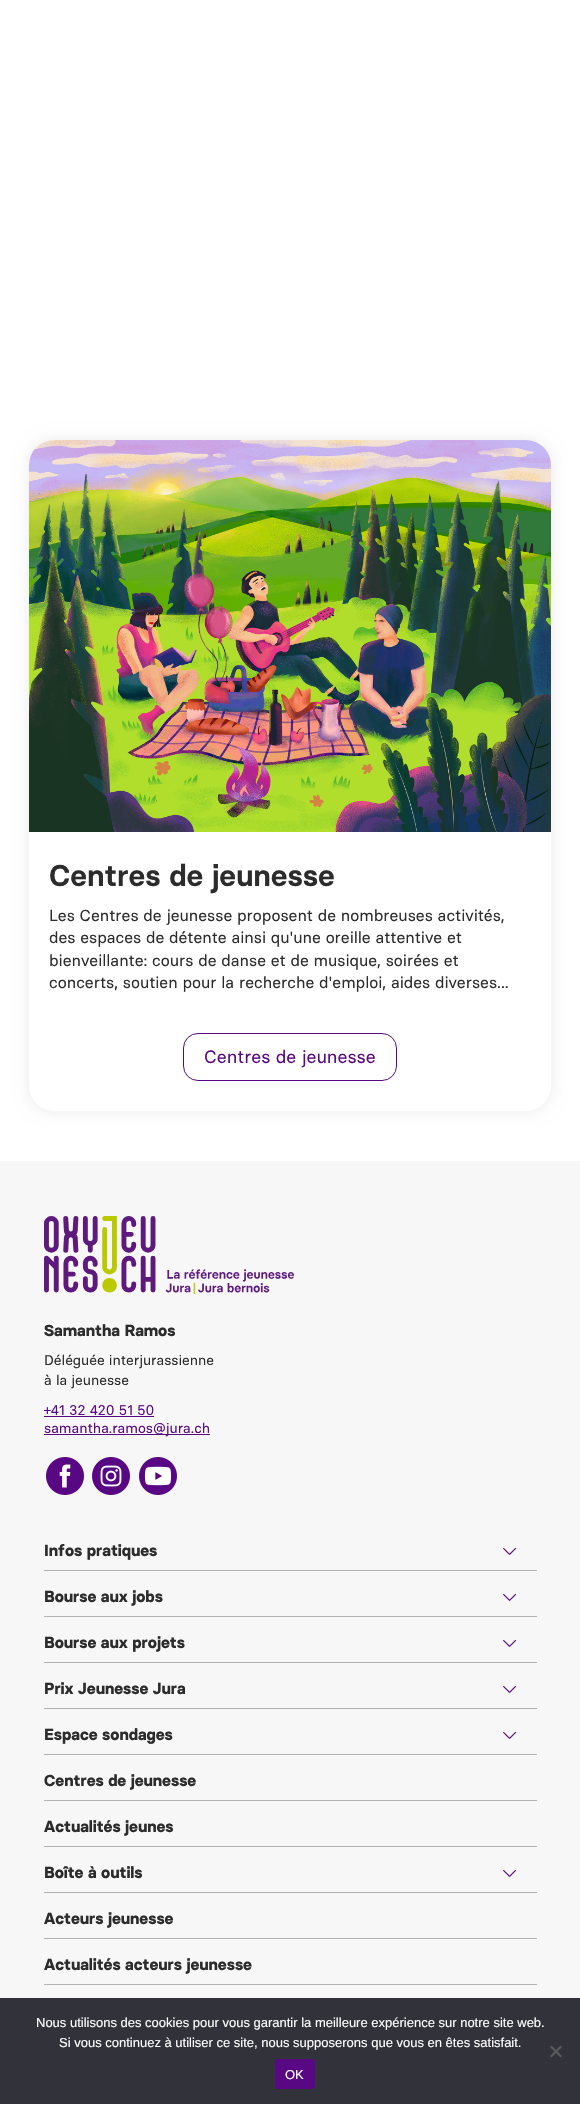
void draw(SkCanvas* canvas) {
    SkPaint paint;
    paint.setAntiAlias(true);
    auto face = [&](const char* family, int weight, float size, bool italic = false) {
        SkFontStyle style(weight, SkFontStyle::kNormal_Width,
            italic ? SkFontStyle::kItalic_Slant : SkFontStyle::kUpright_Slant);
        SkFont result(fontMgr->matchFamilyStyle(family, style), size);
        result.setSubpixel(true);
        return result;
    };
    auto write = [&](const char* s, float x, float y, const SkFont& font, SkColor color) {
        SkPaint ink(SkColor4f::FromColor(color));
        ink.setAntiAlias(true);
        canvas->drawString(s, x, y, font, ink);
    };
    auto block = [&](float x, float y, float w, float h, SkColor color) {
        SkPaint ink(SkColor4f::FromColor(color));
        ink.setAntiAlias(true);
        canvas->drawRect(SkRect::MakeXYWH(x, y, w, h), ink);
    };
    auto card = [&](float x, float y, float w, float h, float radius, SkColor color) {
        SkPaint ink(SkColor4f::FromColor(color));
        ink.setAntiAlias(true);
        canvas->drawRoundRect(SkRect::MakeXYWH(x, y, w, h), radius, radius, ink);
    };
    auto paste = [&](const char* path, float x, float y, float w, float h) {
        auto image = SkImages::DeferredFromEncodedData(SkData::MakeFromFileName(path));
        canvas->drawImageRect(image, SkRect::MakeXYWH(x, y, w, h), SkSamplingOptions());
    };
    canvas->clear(SK_ColorWHITE);
    paint.setColor(SkColorSetARGB(20, 0, 0, 0));
    paint.setMaskFilter(SkMaskFilter::MakeBlur(kNormal_SkBlurStyle, 7.5f));
    canvas->drawRoundRect(SkRect::MakeXYWH(29, 440, 522, 671), 25, 25, paint);
    paint.setMaskFilter(nullptr);
    card(29, 440, 522, 671, 25, SK_ColorWHITE);
    paste("pic1.png", 29, 440, 522, 392);
    auto kFont1 = face("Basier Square", 600, 30);
    write("Centres de jeunesse", 49, 886, kFont1, SkColorSetRGB(44, 44, 44));
    auto kFont2 = face("Basier Square", 400, 16);
    write("Les Centres de jeunesse proposent de nombreuses activités,", 49, 921, kFont2, SkColorSetRGB(44, 44, 44));
    write("des espaces de détente ainsi qu'une oreille attentive et", 49, 943, kFont2, SkColorSetRGB(44, 44, 44));
    write("bienveillante: cours de danse et de musique, soirées et", 49, 966, kFont2, SkColorSetRGB(44, 44, 44));
    write("concerts, soutien pour la recherche d'emploi, aides diverses...", 49, 988, kFont2, SkColorSetRGB(44, 44, 44));
    paint.setStyle(SkPaint::kStroke_Style);
    paint.setStrokeWidth(1);
    paint.setColor(SkColorSetRGB(89, 8, 131));
    canvas->drawRoundRect(SkRect::MakeXYWH(183.5f, 1033.5f, 213, 47), 14.5f, 14.5f, paint);
    auto kFont3 = face("Basier Square", 400, 18);
    write("Centres de jeunesse", 204, 1063, kFont3, SkColorSetRGB(89, 8, 131));
    block(0, 1161, 580, 837, SkColorSetRGB(248, 247, 248));
    paste("pic2.png", 44, 1216, 250, 78);
    auto kFont4 = face("Basier Square", 700, 16);
    write("Samantha Ramos", 44, 1336, kFont4, SkColorSetRGB(44, 44, 44));
    auto kFont5 = face("Basier Square", 400, 14);
    write("Déléguée interjurassienne", 44, 1365, kFont5, SkColorSetRGB(44, 44, 44));
    write("à la jeunesse", 44, 1385, kFont5, SkColorSetRGB(44, 44, 44));
    write("+41 32 420 51 50", 44, 1415, kFont5, SkColorSetRGB(89, 8, 131));
    block(44, 1416, 110, 1, SkColorSetRGB(89, 8, 131));
    block(44, 1434, 166, 1, SkColorSetRGB(89, 8, 131));
    write("samantha.ramos@jura.ch", 44, 1433, kFont5, SkColorSetRGB(89, 8, 131));
    paste("pic3.png", 46, 1457, 38, 38);
    paste("pic4.png", 92, 1457, 38, 38);
    paste("pic5.png", 139, 1457, 38, 38);
    block(44, 1570, 493, 1, SkColorSetRGB(178, 178, 178));
    write("Infos pratiques", 44, 1556, kFont4, SkColorSetRGB(44, 44, 44));
    paste("pic6.png", 503, 1548, 14, 7);
    block(44, 1616, 493, 1, SkColorSetRGB(178, 178, 178));
    write("Bourse aux jobs", 44, 1602, kFont4, SkColorSetRGB(44, 44, 44));
    paste("pic6.png", 503, 1594, 14, 7);
    block(44, 1662, 493, 1, SkColorSetRGB(178, 178, 178));
    write("Bourse aux projets", 44, 1648, kFont4, SkColorSetRGB(44, 44, 44));
    paste("pic6.png", 503, 1640, 14, 7);
    block(44, 1708, 493, 1, SkColorSetRGB(178, 178, 178));
    write("Prix Jeunesse Jura", 44, 1694, kFont4, SkColorSetRGB(44, 44, 44));
    paste("pic6.png", 503, 1686, 14, 7);
    block(44, 1754, 493, 1, SkColorSetRGB(178, 178, 178));
    write("Espace sondages", 44, 1740, kFont4, SkColorSetRGB(44, 44, 44));
    paste("pic6.png", 503, 1732, 14, 7);
    block(44, 1800, 493, 1, SkColorSetRGB(178, 178, 178));
    write("Centres de jeunesse", 44, 1786, kFont4, SkColorSetRGB(44, 44, 44));
    block(44, 1846, 493, 1, SkColorSetRGB(178, 178, 178));
    write("Actualités jeunes", 44, 1832, kFont4, SkColorSetRGB(44, 44, 44));
    block(44, 1892, 493, 1, SkColorSetRGB(178, 178, 178));
    write("Boîte à outils", 44, 1878, kFont4, SkColorSetRGB(44, 44, 44));
    paste("pic6.png", 503, 1870, 14, 7);
    block(44, 1938, 493, 1, SkColorSetRGB(178, 178, 178));
    write("Acteurs jeunesse", 44, 1924, kFont4, SkColorSetRGB(44, 44, 44));
    block(44, 1984, 493, 1, SkColorSetRGB(178, 178, 178));
    write("Actualités acteurs jeunesse", 44, 1970, kFont4, SkColorSetRGB(44, 44, 44));
    block(0, 1998, 580, 106, SkColorSetRGB(50, 50, 58));
    auto kFont6 = face("Liberation Sans", 400, 13);
    write("Nous utilisons des cookies pour vous garantir la meilleure expérience sur notre site web.", 36, 2027, kFont6, SK_ColorWHITE);
    write("Si vous continuez à utiliser ce site, nous supposerons que vous en êtes satisfait.", 59, 2047, kFont6, SK_ColorWHITE);
    paint.setStyle(SkPaint::kFill_Style);
    paint.setColor(SkColorSetRGB(89, 89, 93));
    canvas->drawPath(SkPathBuilder().moveTo(560.5f, 2045.5f).lineTo(562, 2047).lineTo(551.5f, 2057.5f).lineTo(550, 2056).close().detach(), paint);
    canvas->drawPath(SkPathBuilder().moveTo(550, 2047).lineTo(551.5f, 2045.5f).lineTo(562, 2056).lineTo(560.5f, 2057.5f).close().detach(), paint);
    card(275, 2059, 40, 30, 3, SkColorSetRGB(89, 8, 131));
    write("OK", 285, 2079, kFont6, SK_ColorWHITE);
}
